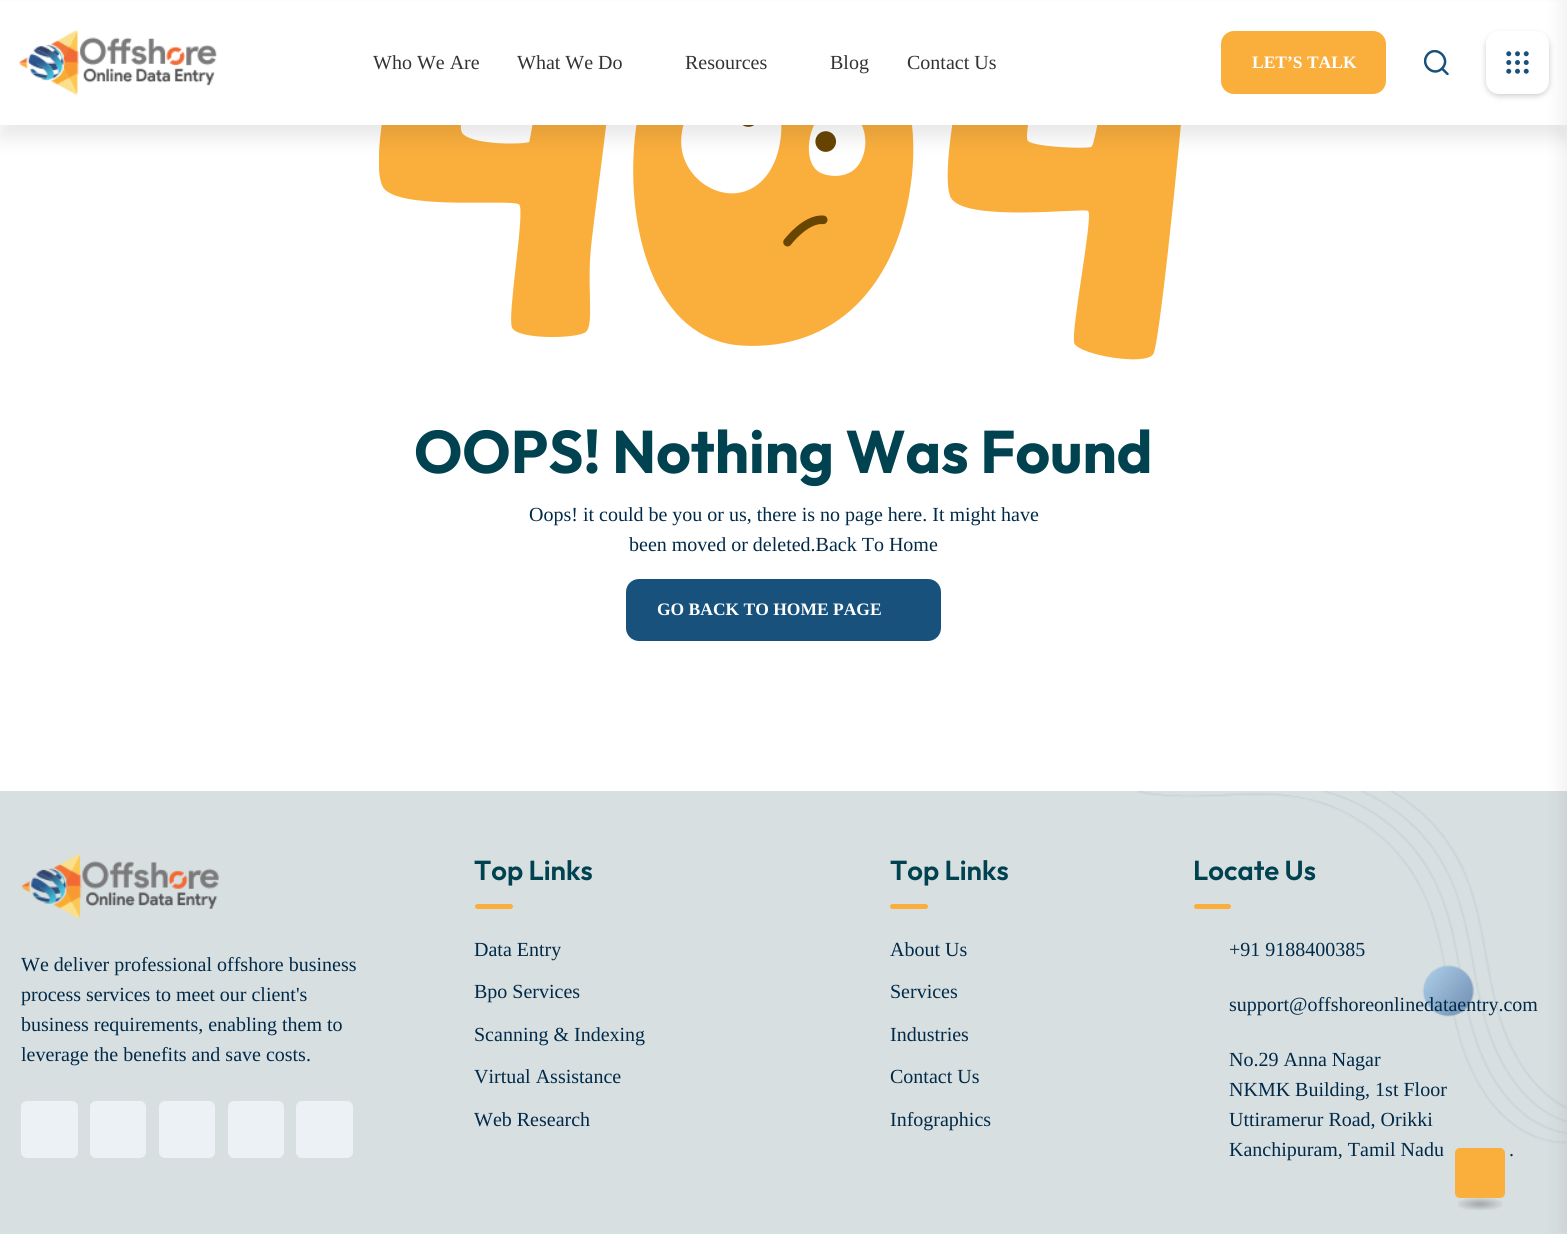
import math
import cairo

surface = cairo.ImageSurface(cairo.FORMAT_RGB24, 1567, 1234)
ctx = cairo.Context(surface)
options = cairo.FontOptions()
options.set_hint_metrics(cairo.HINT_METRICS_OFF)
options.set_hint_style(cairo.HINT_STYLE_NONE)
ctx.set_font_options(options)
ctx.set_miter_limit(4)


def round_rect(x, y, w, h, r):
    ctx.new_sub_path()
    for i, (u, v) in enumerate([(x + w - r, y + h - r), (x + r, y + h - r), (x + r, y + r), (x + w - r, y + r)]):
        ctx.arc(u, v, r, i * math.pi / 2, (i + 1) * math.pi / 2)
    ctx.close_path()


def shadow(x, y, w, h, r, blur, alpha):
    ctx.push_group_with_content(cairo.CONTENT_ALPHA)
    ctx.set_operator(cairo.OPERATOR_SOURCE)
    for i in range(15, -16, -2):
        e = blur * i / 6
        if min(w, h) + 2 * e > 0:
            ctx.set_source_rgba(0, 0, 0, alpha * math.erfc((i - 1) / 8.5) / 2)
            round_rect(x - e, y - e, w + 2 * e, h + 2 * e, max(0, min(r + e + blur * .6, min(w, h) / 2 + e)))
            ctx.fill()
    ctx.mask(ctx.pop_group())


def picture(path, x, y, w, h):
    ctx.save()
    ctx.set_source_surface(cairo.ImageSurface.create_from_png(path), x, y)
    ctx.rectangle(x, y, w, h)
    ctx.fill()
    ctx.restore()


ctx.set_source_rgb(1, 1, 1)
ctx.paint()
ctx.set_source_rgb(0.847, 0.875, 0.882)
ctx.rectangle(0, 791, 1567, 443)
ctx.fill()
picture("img3.png", 379, 125, 802, 235)
ctx.set_source_rgb(0.098, 0.098, 0.098)
shadow(0, 13, 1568, 125, 0, 9.5, 0.1)
ctx.set_source_rgb(1, 1, 1)
ctx.rectangle(0, 2, 1567, 123)
ctx.fill()
picture("img1.png", 18, 30, 199, 65)
ctx.select_font_face("Liberation Serif")
ctx.set_font_size(20)
ctx.set_source_rgb(0.2, 0.2, 0.2)
ctx.move_to(373, 69)
ctx.show_text("Who We Are")
ctx.move_to(517, 69)
ctx.show_text("What We Do")
ctx.move_to(685, 69)
ctx.show_text("Resources")
ctx.move_to(830, 69)
ctx.show_text("Blog")
ctx.move_to(907, 69)
ctx.show_text("Contact Us")
ctx.set_source_rgb(0.98, 0.682, 0.235)
round_rect(1221, 31, 165, 63, 13)
ctx.fill()
ctx.select_font_face("Liberation Serif", cairo.FONT_SLANT_NORMAL, cairo.FONT_WEIGHT_BOLD)
ctx.set_font_size(17.5)
ctx.set_source_rgb(1, 1, 1)
ctx.move_to(1252, 68)
ctx.show_text("LET’S TALK")
ctx.save()
ctx.rectangle(1424, 50, 25, 25)
ctx.clip()
ctx.new_path()
ctx.move_to(1447.5, 74)
ctx.line_to(1442, 68.5)
ctx.move_to(1442, 68.5)
ctx.curve_to(1451.5, 59, 1437, 45, 1428, 54)
ctx.curve_to(1419, 64, 1433, 77.5, 1442, 68.5)
ctx.close_path()
ctx.set_source_rgb(0.09, 0.318, 0.486)
ctx.set_line_width(2.5)
ctx.set_line_cap(cairo.LINE_CAP_ROUND)
ctx.set_line_join(cairo.LINE_JOIN_ROUND)
ctx.stroke()
ctx.restore()
ctx.set_source_rgb(0, 0, 0)
shadow(1486, 34, 63, 62, 13, 3, 0.2)
ctx.set_source_rgb(1, 1, 1)
round_rect(1486, 31, 63, 63, 13)
ctx.fill()
picture("img2.png", 1506, 51, 23, 23)
picture("img4.png", 1137, 791, 430, 353)
ctx.set_source_rgb(0, 0, 0)
shadow(1560, 0, 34, 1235, 0, 9, 0.06)
ctx.select_font_face("Outfit", cairo.FONT_SLANT_NORMAL, cairo.FONT_WEIGHT_BOLD)
ctx.set_font_size(60)
ctx.set_source_rgb(0, 0.259, 0.314)
ctx.move_to(414, 473)
ctx.show_text("OOPS! Nothing Was Found")
ctx.select_font_face("Liberation Serif")
ctx.set_font_size(20)
ctx.set_source_rgb(0, 0.165, 0.282)
ctx.move_to(529, 521)
ctx.show_text("Oops! it could be you or us, there is no page here. It might have")
ctx.move_to(629, 551)
ctx.show_text("been moved or deleted.Back To Home")
ctx.set_source_rgb(0.09, 0.318, 0.486)
round_rect(626, 579, 315, 62, 13)
ctx.fill()
ctx.select_font_face("Liberation Serif", cairo.FONT_SLANT_NORMAL, cairo.FONT_WEIGHT_BOLD)
ctx.set_font_size(17.5)
ctx.set_source_rgb(1, 1, 1)
ctx.move_to(657, 615)
ctx.show_text("GO BACK TO HOME PAGE")
picture("img5.png", 1422, 965, 52, 52)
picture("img6.png", 21, 853, 198, 66)
ctx.select_font_face("Liberation Serif")
ctx.set_font_size(20)
ctx.set_source_rgb(0, 0.165, 0.282)
ctx.move_to(21, 971)
ctx.show_text("We deliver professional offshore business")
ctx.move_to(21, 1001)
ctx.show_text("process services to meet our client's")
ctx.move_to(21, 1031)
ctx.show_text("business requirements, enabling them to")
ctx.move_to(21, 1061)
ctx.show_text("leverage the benefits and save costs.")
ctx.set_source_rgb(0.918, 0.945, 0.957)
round_rect(21, 1101, 57, 57, 6)
ctx.fill()
round_rect(90, 1101, 56, 57, 6)
ctx.fill()
round_rect(159, 1101, 56, 57, 6)
ctx.fill()
round_rect(228, 1101, 56, 57, 6)
ctx.fill()
round_rect(296, 1101, 57, 57, 6)
ctx.fill()
ctx.select_font_face("Outfit SemiBold")
ctx.set_font_size(27.5)
ctx.set_source_rgb(0, 0.259, 0.314)
ctx.move_to(474, 880)
ctx.show_text("Top Links")
ctx.set_source_rgb(0.98, 0.682, 0.235)
round_rect(475, 904, 38, 5, 2.5)
ctx.fill()
ctx.select_font_face("Liberation Serif")
ctx.set_font_size(20)
ctx.set_source_rgb(0, 0.165, 0.282)
ctx.move_to(474, 956)
ctx.show_text("Data Entry")
ctx.move_to(474, 998)
ctx.show_text("Bpo Services")
ctx.move_to(474, 1041)
ctx.show_text("Scanning & Indexing")
ctx.move_to(474, 1083)
ctx.show_text("Virtual Assistance")
ctx.move_to(474, 1126)
ctx.show_text("Web Research")
ctx.select_font_face("Outfit SemiBold")
ctx.set_font_size(27.5)
ctx.set_source_rgb(0, 0.259, 0.314)
ctx.move_to(890, 880)
ctx.show_text("Top Links")
ctx.set_source_rgb(0.98, 0.682, 0.235)
round_rect(890, 904, 38, 5, 2.5)
ctx.fill()
ctx.select_font_face("Liberation Serif")
ctx.set_font_size(20)
ctx.set_source_rgb(0, 0.165, 0.282)
ctx.move_to(890, 956)
ctx.show_text("About Us")
ctx.move_to(890, 998)
ctx.show_text("Services")
ctx.move_to(890, 1041)
ctx.show_text("Industries")
ctx.move_to(890, 1083)
ctx.show_text("Contact Us")
ctx.move_to(890, 1126)
ctx.show_text("Infographics")
ctx.select_font_face("Outfit SemiBold")
ctx.set_font_size(27.5)
ctx.set_source_rgb(0, 0.259, 0.314)
ctx.move_to(1193, 880)
ctx.show_text("Locate Us")
ctx.set_source_rgb(0.98, 0.682, 0.235)
round_rect(1194, 904, 37, 5, 2.5)
ctx.fill()
ctx.select_font_face("Liberation Serif")
ctx.set_font_size(20)
ctx.set_source_rgb(0, 0.165, 0.282)
ctx.move_to(1229, 956)
ctx.show_text("+91 9188400385")
ctx.move_to(1229, 1011)
ctx.show_text("support@offshoreonlinedataentry.com")
ctx.move_to(1229, 1066)
ctx.show_text("No.29 Anna Nagar")
ctx.move_to(1229, 1096)
ctx.show_text("NKMK Building, 1st Floor")
ctx.move_to(1229, 1126)
ctx.show_text("Uttiramerur Road, Orikki")
ctx.move_to(1229, 1156)
ctx.show_text("Kanchipuram, Tamil Nadu")
ctx.move_to(1509, 1156)
ctx.show_text(".")
ctx.set_source_rgb(0.98, 0.682, 0.235)
round_rect(1455, 1148, 50, 50, 5)
ctx.fill()
gradient = cairo.RadialGradient(0, 0, 0, 0, 0, 1)
gradient.set_matrix(cairo.Matrix(1 / 32, 0, 0, 1 / 9, -1 * 1480 / 32, -1 * 1204 / 9))
gradient.add_color_stop_rgba(0, 0.635, 0.655, 0.663, 1)
gradient.add_color_stop_rgba(0.8, 0.847, 0.875, 0.882, 1)
ctx.set_source(gradient)
ctx.rectangle(1458, 1198, 45, 12)
ctx.fill()
surface.write_to_png("page.png")
